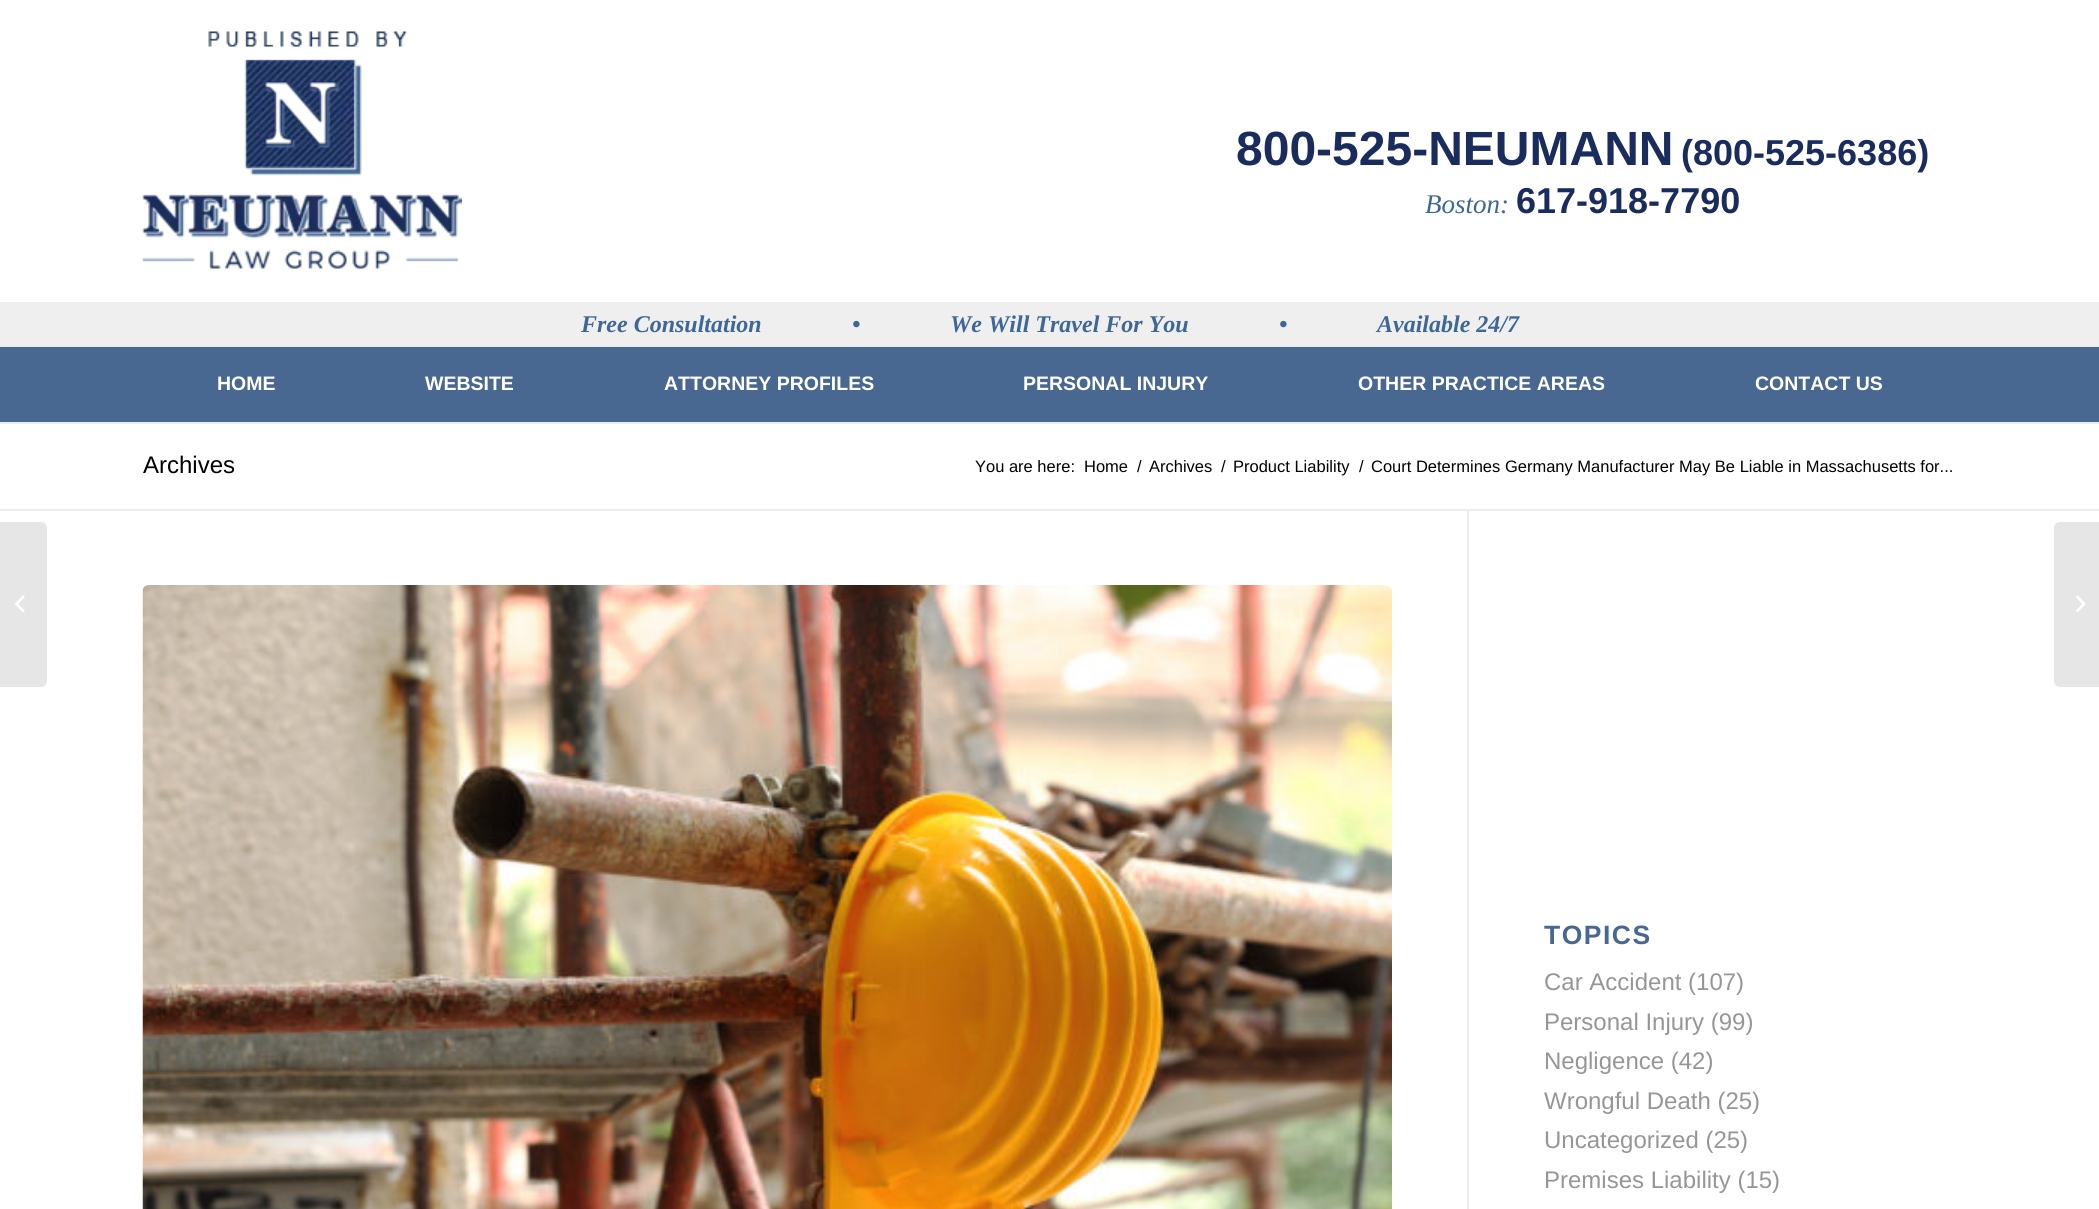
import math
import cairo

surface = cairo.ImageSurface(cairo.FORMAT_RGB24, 2099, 1209)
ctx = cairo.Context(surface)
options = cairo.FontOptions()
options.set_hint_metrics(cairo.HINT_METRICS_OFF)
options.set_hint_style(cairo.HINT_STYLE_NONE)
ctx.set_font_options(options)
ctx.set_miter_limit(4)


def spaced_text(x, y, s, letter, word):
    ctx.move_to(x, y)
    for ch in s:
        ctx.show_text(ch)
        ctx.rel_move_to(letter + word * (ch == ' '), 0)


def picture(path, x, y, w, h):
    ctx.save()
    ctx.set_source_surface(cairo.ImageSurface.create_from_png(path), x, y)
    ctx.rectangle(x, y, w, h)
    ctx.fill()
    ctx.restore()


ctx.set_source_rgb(1, 1, 1)
ctx.paint()
ctx.set_source_rgb(0.922, 0.922, 0.922)
ctx.rectangle(0, 422, 2099, 2)
ctx.fill()
picture("img1.png", 142, 31, 320, 238)
ctx.select_font_face("Liberation Sans", cairo.FONT_SLANT_NORMAL, cairo.FONT_WEIGHT_BOLD)
ctx.set_font_size(48)
ctx.set_source_rgb(0.102, 0.173, 0.369)
ctx.move_to(1236, 165)
ctx.show_text("800-525-NEUMANN")
ctx.set_font_size(36)
ctx.move_to(1681, 165)
ctx.show_text("(800-525-6386)")
ctx.select_font_face("Liberation Serif", cairo.FONT_SLANT_ITALIC)
ctx.set_font_size(27)
ctx.set_source_rgb(0.247, 0.404, 0.584)
ctx.move_to(1425, 213)
ctx.show_text("Boston:")
ctx.select_font_face("Liberation Sans", cairo.FONT_SLANT_NORMAL, cairo.FONT_WEIGHT_BOLD)
ctx.set_font_size(36)
ctx.set_source_rgb(0.102, 0.173, 0.369)
ctx.move_to(1516, 213)
ctx.show_text("617-918-7790")
ctx.set_source_rgb(0.937, 0.937, 0.937)
ctx.rectangle(0, 302, 2099, 43)
ctx.fill()
ctx.select_font_face("Liberation Serif", cairo.FONT_SLANT_ITALIC, cairo.FONT_WEIGHT_BOLD)
ctx.set_font_size(24)
ctx.set_source_rgb(0.247, 0.404, 0.584)
ctx.move_to(581, 332)
ctx.show_text("Free Consultation")
ctx.move_to(852, 332)
ctx.show_text("•")
ctx.move_to(950, 332)
ctx.show_text("We Will Travel For You")
ctx.move_to(1279, 332)
ctx.show_text("•")
ctx.move_to(1377, 332)
ctx.show_text("Available 24/7")
ctx.set_source_rgb(0.282, 0.404, 0.569)
ctx.rectangle(0, 347, 2099, 75)
ctx.fill()
ctx.set_source_rgb(0.922, 0.922, 0.922)
ctx.rectangle(0, 345, 2099, 2)
ctx.fill()
ctx.select_font_face("Liberation Sans", cairo.FONT_SLANT_NORMAL, cairo.FONT_WEIGHT_BOLD)
ctx.set_font_size(19.5)
ctx.set_source_rgb(1, 1, 1)
ctx.move_to(217, 390)
ctx.show_text("HOME")
ctx.move_to(425, 390)
ctx.show_text("WEBSITE")
ctx.move_to(664, 390)
ctx.show_text("ATTORNEY PROFILES")
ctx.move_to(1023, 390)
ctx.show_text("PERSONAL INJURY")
ctx.move_to(1358, 390)
ctx.show_text("OTHER PRACTICE AREAS")
ctx.move_to(1755, 390)
ctx.show_text("CONTACT US")
ctx.set_source_rgb(0.902, 0.902, 0.902)
ctx.new_path()
ctx.move_to(0, 522)
ctx.line_to(41, 522)
ctx.curve_to(44.5, 522, 47, 524.5, 47, 528)
ctx.line_to(47, 681)
ctx.curve_to(47, 684.5, 44.5, 687, 41, 687)
ctx.line_to(0, 687)
ctx.close_path()
ctx.fill()
picture("img2.png", 15, 595, 10, 17)
ctx.select_font_face("Liberation Sans")
ctx.set_font_size(24)
ctx.set_source_rgb(0, 0, 0)
ctx.move_to(143, 473)
ctx.show_text("Archives")
ctx.set_font_size(16.5)
ctx.move_to(975, 472)
ctx.show_text("You are here:")
ctx.move_to(1084, 472)
ctx.show_text("Home")
ctx.move_to(1137, 472)
ctx.show_text("/")
ctx.move_to(1149, 472)
ctx.show_text("Archives")
ctx.move_to(1221, 472)
ctx.show_text("/")
ctx.move_to(1233, 472)
ctx.show_text("Product Liability")
ctx.move_to(1359, 472)
ctx.show_text("/")
ctx.move_to(1371, 472)
ctx.show_text("Court Determines Germany Manufacturer May Be Liable in Massachusetts for...")
ctx.set_source_rgb(0.922, 0.922, 0.922)
ctx.rectangle(0, 509, 2099, 2)
ctx.fill()
ctx.rectangle(1467, 510, 2, 699)
ctx.fill()
picture("img3.png", 142, 585, 1250, 624)
ctx.select_font_face("Liberation Sans", cairo.FONT_SLANT_NORMAL, cairo.FONT_WEIGHT_BOLD)
ctx.set_font_size(26.5)
ctx.set_source_rgb(0.282, 0.404, 0.569)
spaced_text(1544, 944, "TOPICS", 1.5, 0)
ctx.select_font_face("Liberation Sans")
ctx.set_font_size(24)
ctx.set_source_rgb(0.588, 0.588, 0.588)
ctx.move_to(1544, 990)
ctx.show_text("Car Accident (107)")
ctx.move_to(1544, 1030)
ctx.show_text("Personal Injury (99)")
ctx.move_to(1544, 1069)
ctx.show_text("Negligence (42)")
ctx.move_to(1544, 1109)
ctx.show_text("Wrongful Death (25)")
ctx.move_to(1544, 1148)
ctx.show_text("Uncategorized (25)")
ctx.move_to(1544, 1188)
ctx.show_text("Premises Liability (15)")
ctx.set_source_rgb(0.902, 0.902, 0.902)
ctx.new_path()
ctx.move_to(2060, 522)
ctx.line_to(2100, 522)
ctx.line_to(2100, 687)
ctx.line_to(2060, 687)
ctx.curve_to(2056.5, 687, 2054, 684.5, 2054, 681)
ctx.line_to(2054, 528)
ctx.curve_to(2054, 524.5, 2056.5, 522, 2060, 522)
ctx.close_path()
ctx.fill()
picture("img4.png", 2076, 595, 10, 17)
surface.write_to_png("page.png")
